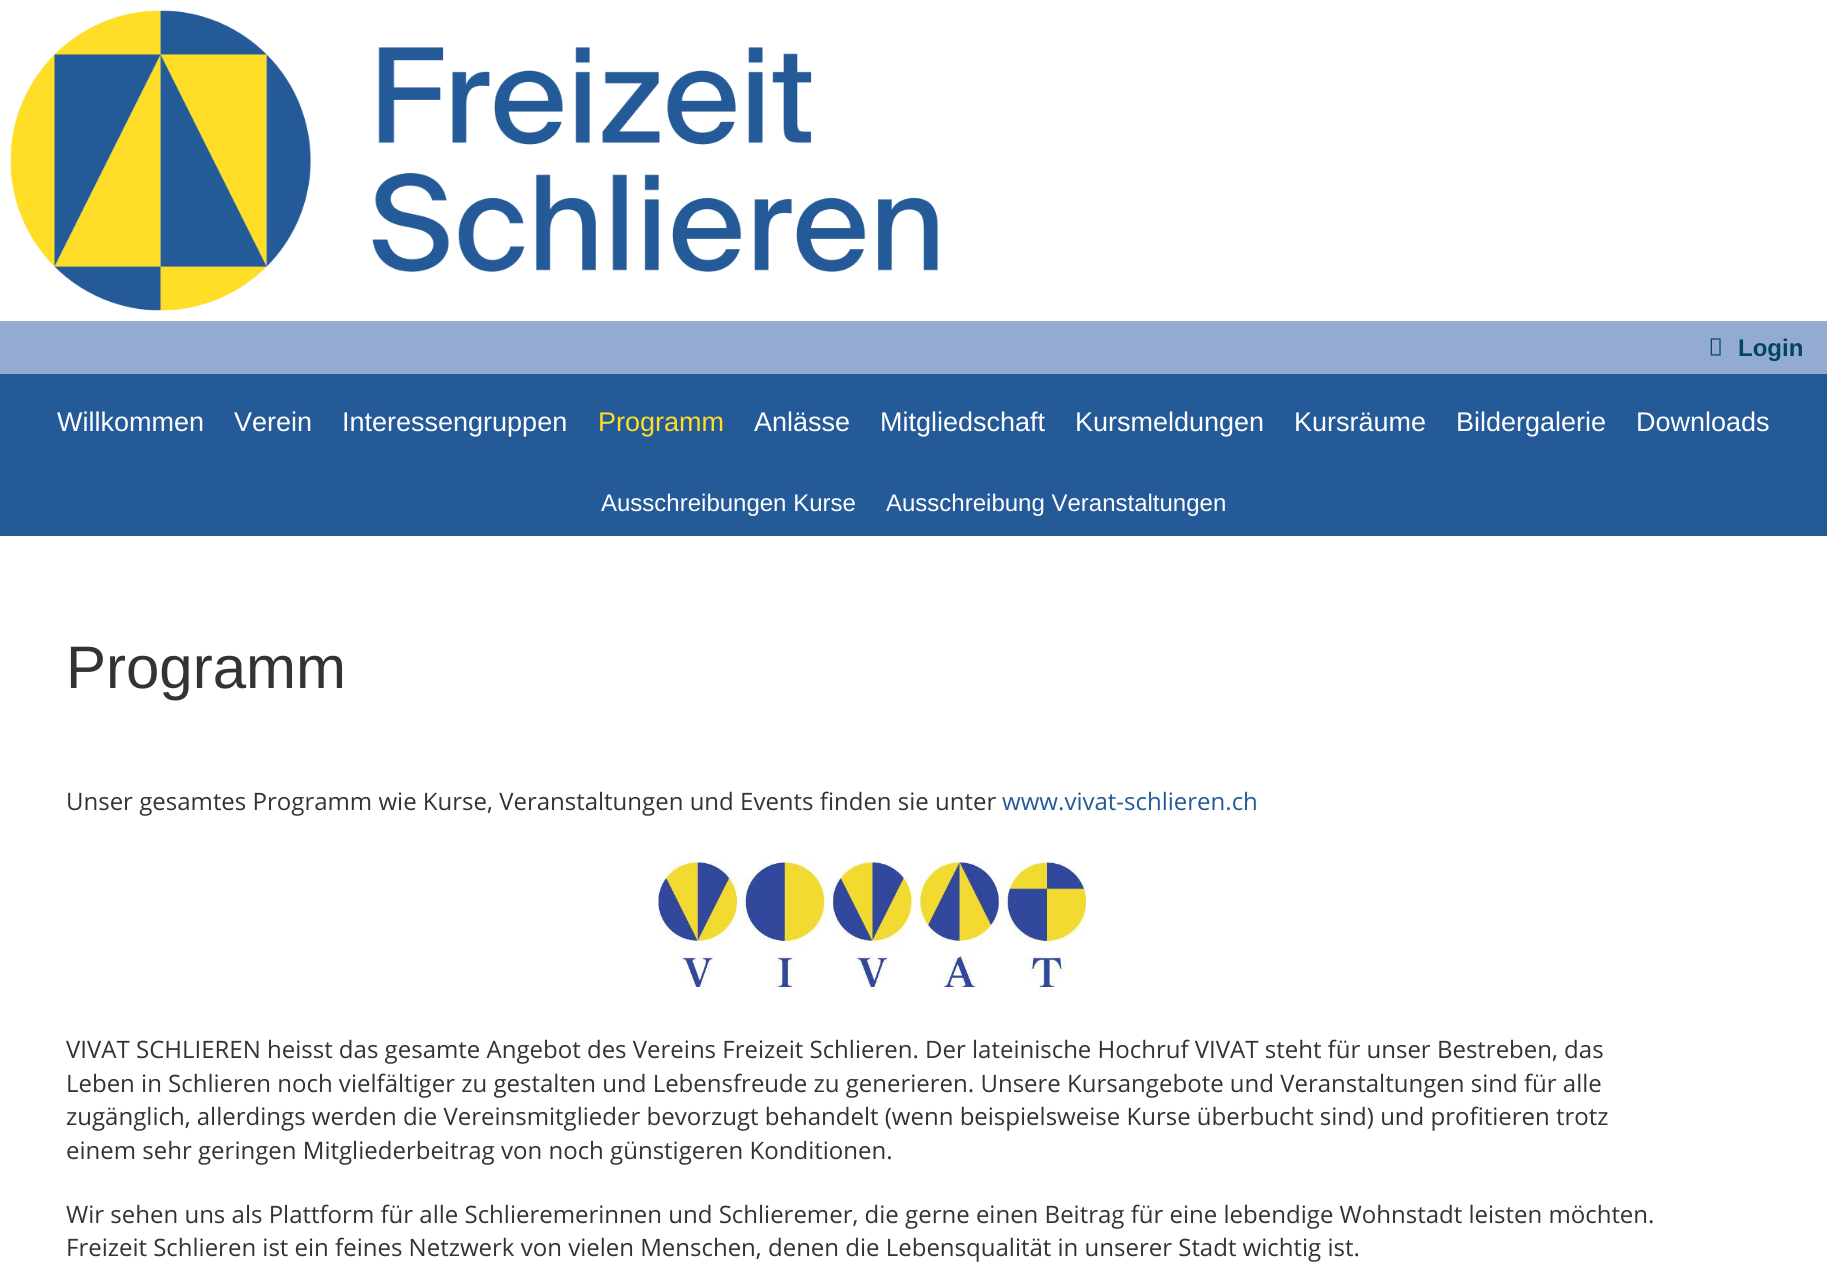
import math
import cairo

surface = cairo.ImageSurface(cairo.FORMAT_RGB24, 1827, 1273)
ctx = cairo.Context(surface)
options = cairo.FontOptions()
options.set_hint_metrics(cairo.HINT_METRICS_OFF)
options.set_hint_style(cairo.HINT_STYLE_NONE)
ctx.set_font_options(options)
ctx.set_miter_limit(4)


def picture(path, x, y, w, h):
    ctx.save()
    ctx.set_source_surface(cairo.ImageSurface.create_from_png(path), x, y)
    ctx.rectangle(x, y, w, h)
    ctx.fill()
    ctx.restore()


ctx.set_source_rgb(1, 1, 1)
ctx.paint()
picture("img1.png", 10, 10, 928, 301)
ctx.set_source_rgb(0.576, 0.671, 0.82)
ctx.rectangle(0, 321, 1827, 53)
ctx.fill()
picture("img2.png", 1710, 338, 11, 18)
ctx.select_font_face("Liberation Sans", cairo.FONT_SLANT_NORMAL, cairo.FONT_WEIGHT_BOLD)
ctx.set_font_size(24)
ctx.set_source_rgb(0.012, 0.271, 0.38)
ctx.move_to(1738, 356)
ctx.show_text("Login")
ctx.set_source_rgb(0.145, 0.353, 0.596)
ctx.rectangle(0, 374, 1827, 162)
ctx.fill()
ctx.select_font_face("Liberation Sans")
ctx.set_font_size(27)
ctx.set_source_rgb(1, 1, 1)
ctx.move_to(57, 431)
ctx.show_text("Willkommen")
ctx.move_to(234, 431)
ctx.show_text("Verein")
ctx.move_to(342, 431)
ctx.show_text("Interessengruppen")
ctx.set_source_rgb(1, 0.871, 0.157)
ctx.move_to(598, 431)
ctx.show_text("Programm")
ctx.set_source_rgb(1, 1, 1)
ctx.move_to(754, 431)
ctx.show_text("Anlässe")
ctx.move_to(880, 431)
ctx.show_text("Mitgliedschaft")
ctx.move_to(1075, 431)
ctx.show_text("Kursmeldungen")
ctx.move_to(1294, 431)
ctx.show_text("Kursräume")
ctx.move_to(1456, 431)
ctx.show_text("Bildergalerie")
ctx.move_to(1636, 431)
ctx.show_text("Downloads")
ctx.set_font_size(24)
ctx.move_to(601, 511)
ctx.show_text("Ausschreibungen Kurse")
ctx.move_to(886, 511)
ctx.show_text("Ausschreibung Veranstaltungen")
ctx.set_font_size(60)
ctx.set_source_rgb(0.2, 0.2, 0.2)
ctx.move_to(66, 688)
ctx.show_text("Programm")
ctx.select_font_face("Open Sans")
ctx.set_font_size(24)
ctx.move_to(66, 810)
ctx.show_text("Unser gesamtes Programm wie Kurse, Veranstaltungen und Events finden sie unter")
ctx.set_source_rgb(0.145, 0.353, 0.596)
ctx.move_to(1002, 810)
ctx.show_text("www.vivat-schlieren.ch")
picture("img3.png", 658, 862, 428, 125)
ctx.set_source_rgb(0.2, 0.2, 0.2)
ctx.move_to(66, 1058)
ctx.show_text("VIVAT SCHLIEREN heisst das gesamte Angebot des Vereins Freizeit Schlieren. Der lateinische Hochruf VIVAT steht für unser Bestreben, das")
ctx.move_to(66, 1092)
ctx.show_text("Leben in Schlieren noch vielfältiger zu gestalten und Lebensfreude zu generieren. Unsere Kursangebote und Veranstaltungen sind für alle")
ctx.move_to(66, 1125)
ctx.show_text("zugänglich, allerdings werden die Vereinsmitglieder bevorzugt behandelt (wenn beispielsweise Kurse überbucht sind) und profitieren trotz")
ctx.move_to(66, 1159)
ctx.show_text("einem sehr geringen Mitgliederbeitrag von noch günstigeren Konditionen.")
ctx.move_to(66, 1223)
ctx.show_text("Wir sehen uns als Plattform für alle Schlieremerinnen und Schlieremer, die gerne einen Beitrag für eine lebendige Wohnstadt leisten möchten.")
ctx.move_to(66, 1256)
ctx.show_text("Freizeit Schlieren ist ein feines Netzwerk von vielen Menschen, denen die Lebensqualität in unserer Stadt wichtig ist.")
surface.write_to_png("page.png")
